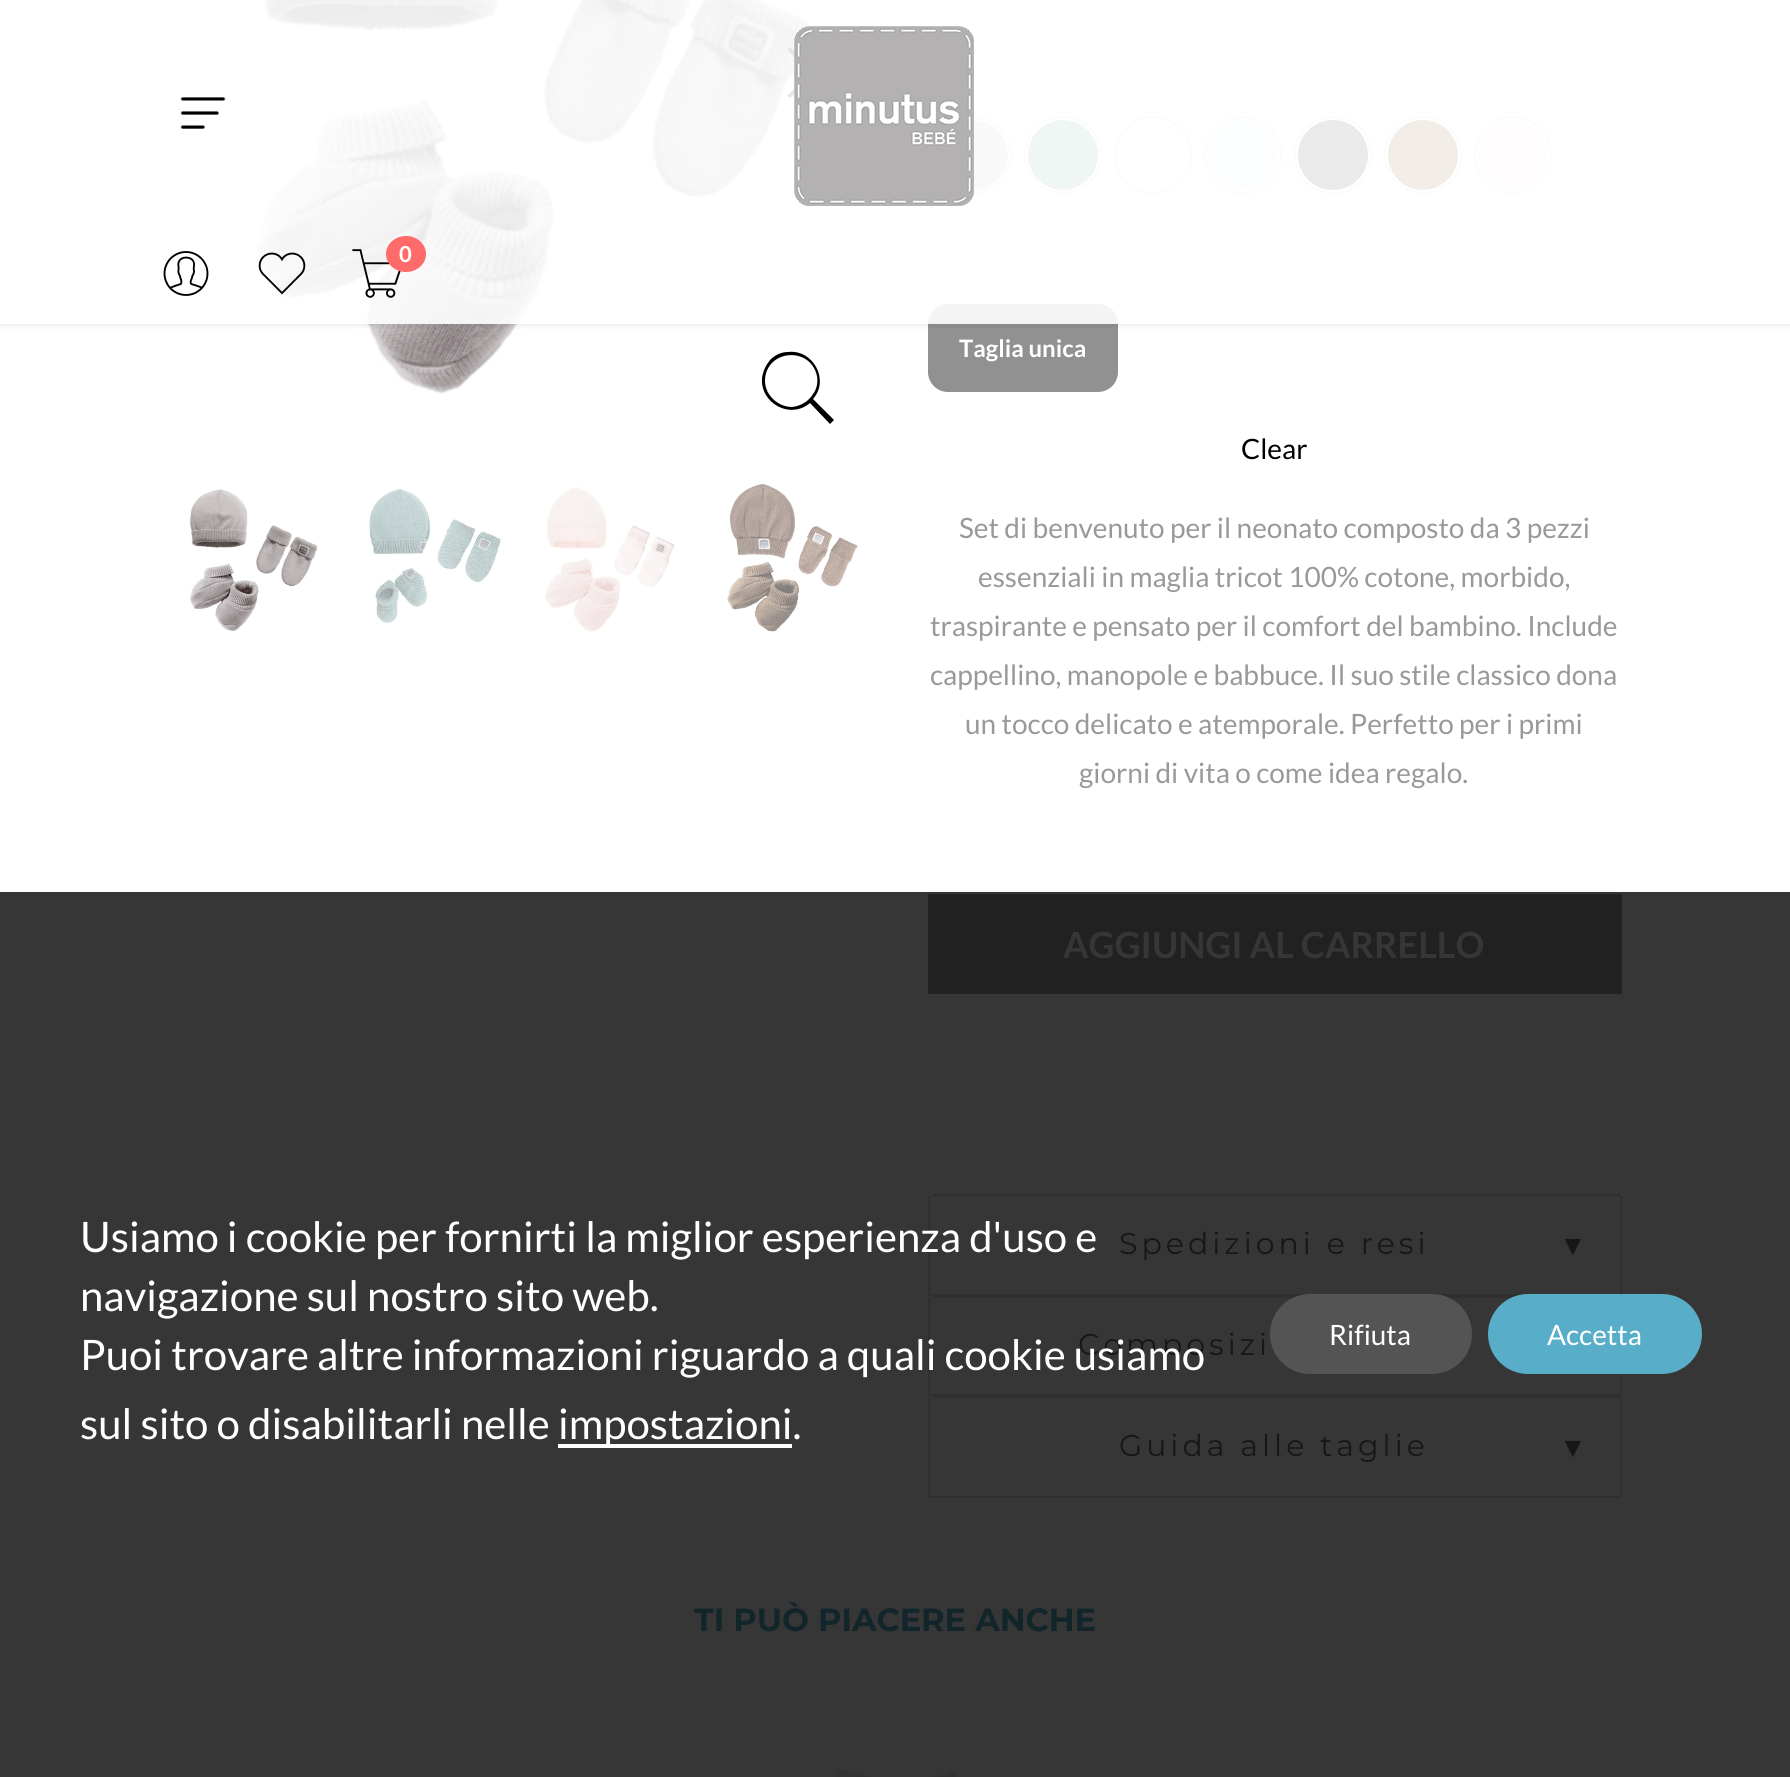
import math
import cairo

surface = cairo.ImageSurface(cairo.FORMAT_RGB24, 1790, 1777)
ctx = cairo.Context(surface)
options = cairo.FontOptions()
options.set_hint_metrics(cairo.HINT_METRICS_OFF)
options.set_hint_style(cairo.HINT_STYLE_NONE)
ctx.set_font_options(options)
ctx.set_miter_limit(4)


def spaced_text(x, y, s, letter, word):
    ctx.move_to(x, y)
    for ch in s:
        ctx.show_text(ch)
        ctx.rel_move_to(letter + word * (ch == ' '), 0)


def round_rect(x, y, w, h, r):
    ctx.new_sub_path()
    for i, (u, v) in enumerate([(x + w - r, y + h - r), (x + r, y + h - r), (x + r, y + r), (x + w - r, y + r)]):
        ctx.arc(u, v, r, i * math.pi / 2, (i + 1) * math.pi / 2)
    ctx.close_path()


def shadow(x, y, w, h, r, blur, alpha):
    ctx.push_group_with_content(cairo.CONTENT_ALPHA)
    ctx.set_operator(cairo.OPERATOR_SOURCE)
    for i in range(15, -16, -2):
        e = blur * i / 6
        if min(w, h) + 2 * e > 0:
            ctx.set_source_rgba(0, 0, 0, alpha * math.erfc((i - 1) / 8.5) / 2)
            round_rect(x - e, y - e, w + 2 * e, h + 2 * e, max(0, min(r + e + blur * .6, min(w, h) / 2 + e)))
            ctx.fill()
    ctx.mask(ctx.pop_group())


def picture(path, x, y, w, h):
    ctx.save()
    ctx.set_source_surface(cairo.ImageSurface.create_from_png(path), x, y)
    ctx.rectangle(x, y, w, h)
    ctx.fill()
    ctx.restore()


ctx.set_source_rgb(1, 1, 1)
ctx.paint()
ctx.set_source_rgb(0.212, 0.212, 0.212)
ctx.rectangle(0, 892, 1790, 885)
ctx.fill()
picture("img6.png", 255, 0, 555, 394)
ctx.set_source_rgb(0, 0, 0)
ctx.new_path()
ctx.move_to(790, 47)
ctx.line_to(816, 73)
ctx.line_to(790, 98)
ctx.line_to(787, 96)
ctx.line_to(810, 73)
ctx.line_to(787, 50)
ctx.close_path()
ctx.fill()
ctx.arc(973, 155, 38, 0, 2 * math.pi)
ctx.set_source_rgb(0.867, 0.867, 0.867)
ctx.stroke()
picture("img11.png", 973, 120, 35, 70)
ctx.arc(1063, 155, 38, 0, 2 * math.pi)
ctx.stroke()
picture("img12.png", 1028, 120, 70, 70)
ctx.arc(1153, 155, 38, 0, 2 * math.pi)
ctx.stroke()
ctx.arc(1243, 155, 38, 0, 2 * math.pi)
ctx.stroke()
picture("img13.png", 1208, 120, 70, 70)
ctx.arc(1333, 155, 38, 0, 2 * math.pi)
ctx.stroke()
ctx.set_source_rgb(0.157, 0.153, 0.22)
ctx.arc(1333, 155, 35, 0, 2 * math.pi)
ctx.fill()
ctx.arc(1423, 155, 38, 0, 2 * math.pi)
ctx.set_source_rgb(0.867, 0.867, 0.867)
ctx.stroke()
ctx.set_source_rgb(0.486, 0.286, 0.051)
ctx.arc(1423, 155, 35, 0, 2 * math.pi)
ctx.fill()
ctx.arc(1513, 155, 38, 0, 2 * math.pi)
ctx.set_source_rgb(0.867, 0.867, 0.867)
ctx.stroke()
picture("img14.png", 1478, 120, 70, 70)
ctx.set_source_rgb(0.569, 0.569, 0.569)
round_rect(930, 306, 186, 84, 18)
ctx.fill_preserve()
ctx.set_line_width(4)
ctx.stroke()
ctx.save()
ctx.rectangle(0, 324, 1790, 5)
ctx.clip()
ctx.set_source_rgb(0, 0, 0)
shadow(0, 0, 1790, 324, 0, 5, 0.12)
ctx.restore()
ctx.set_source_rgba(1, 1, 1, 0.9)
ctx.rectangle(255, 0, 1297, 324)
ctx.fill()
picture("img1.png", 180, 97, 46, 32)
picture("img2.png", 794, 26, 180, 180)
picture("img3.png", 163, 251, 46, 45)
picture("img4.png", 258, 252, 48, 43)
picture("img5.png", 352, 249, 49, 49)
ctx.set_source_rgb(1, 0.42, 0.42)
ctx.new_path()
ctx.move_to(406, 236)
ctx.curve_to(417, 236, 426, 244, 426, 254)
ctx.curve_to(426, 264, 417, 272, 406, 272)
ctx.curve_to(395, 272, 386, 264, 386, 254)
ctx.curve_to(386, 244, 395, 236, 406, 236)
ctx.close_path()
ctx.fill()
ctx.select_font_face("Lato", cairo.FONT_SLANT_NORMAL, cairo.FONT_WEIGHT_BOLD)
ctx.set_font_size(22)
ctx.set_source_rgb(1, 1, 1)
ctx.move_to(399, 262)
ctx.show_text("0")
ctx.set_source_rgb(0, 0, 0)
ctx.new_path()
ctx.move_to(834, 420)
ctx.line_to(813, 399)
ctx.curve_to(830, 380, 813, 349, 788, 352)
ctx.curve_to(781, 352, 775, 355, 770, 360)
ctx.curve_to(766, 365, 763, 371, 762, 378)
ctx.curve_to(760, 403, 790, 420, 810, 403)
ctx.line_to(830, 424)
ctx.close_path()
ctx.move_to(765, 381)
ctx.curve_to(765, 350, 810, 345, 817, 376)
ctx.curve_to(818, 382, 817, 389, 813, 394)
ctx.curve_to(809, 401, 801, 406, 792, 407)
ctx.curve_to(778, 407, 765, 395, 765, 381)
ctx.close_path()
ctx.fill()
picture("img7.png", 189, 489, 129, 143)
picture("img8.png", 369, 488, 132, 135)
picture("img9.png", 545, 487, 129, 145)
picture("img10.png", 727, 483, 131, 149)
ctx.set_font_size(24)
ctx.set_source_rgb(1, 1, 1)
ctx.move_to(959, 357)
ctx.show_text("Taglia unica")
ctx.select_font_face("Lato")
ctx.set_font_size(28)
ctx.set_source_rgb(0, 0, 0)
ctx.move_to(1241, 459)
ctx.show_text("Clear")
ctx.set_source_rgb(0.6, 0.6, 0.6)
ctx.move_to(959, 538)
ctx.show_text("Set di benvenuto per il neonato composto da 3 pezzi")
ctx.move_to(978, 587)
ctx.show_text("essenziali in maglia tricot 100% cotone, morbido,")
ctx.move_to(930, 636)
ctx.show_text("traspirante e pensato per il comfort del bambino. Include")
ctx.move_to(930, 685)
ctx.show_text("cappellino, manopole e babbuce. Il suo stile classico dona")
ctx.move_to(965, 734)
ctx.show_text("un tocco delicato e atemporale. Perfetto per i primi")
ctx.move_to(1079, 783)
ctx.show_text("giorni di vita o come idea regalo.")
ctx.set_source_rgb(0.129, 0.129, 0.129)
ctx.rectangle(928, 894, 694, 100)
ctx.fill()
ctx.select_font_face("Lato", cairo.FONT_SLANT_NORMAL, cairo.FONT_WEIGHT_BOLD)
ctx.set_font_size(36)
ctx.set_source_rgb(0.212, 0.212, 0.212)
ctx.move_to(1063, 958)
ctx.show_text("AGGIUNGI AL CARRELLO")
ctx.set_source_rgb(0.184, 0.184, 0.184)
ctx.rectangle(932, 1194, 688, 2)
ctx.fill()
ctx.rectangle(928, 1294, 600, 2)
ctx.fill()
ctx.rectangle(1620, 1196, 2, 98)
ctx.fill()
ctx.rectangle(928, 1196, 2, 98)
ctx.fill()
ctx.select_font_face("Montserrat")
ctx.set_font_size(30)
ctx.set_source_rgb(0.09, 0.09, 0.09)
spaced_text(1119, 1254, "Spedizioni e resi", 4, 0)
ctx.select_font_face("Liberation Sans")
ctx.set_font_size(28)
ctx.move_to(1559, 1255)
ctx.show_text("▼")
ctx.set_source_rgb(0.184, 0.184, 0.184)
ctx.rectangle(932, 1296, 584, 2)
ctx.fill()
ctx.rectangle(928, 1394, 694, 2)
ctx.fill()
ctx.rectangle(1620, 1374, 2, 20)
ctx.fill()
ctx.rectangle(928, 1298, 2, 96)
ctx.fill()
ctx.select_font_face("Montserrat")
ctx.set_font_size(30)
ctx.set_source_rgb(0.09, 0.09, 0.09)
spaced_text(1078, 1355, "Composizi", 4, 0)
ctx.set_source_rgb(0.184, 0.184, 0.184)
ctx.rectangle(932, 1396, 688, 2)
ctx.fill()
ctx.rectangle(928, 1496, 694, 2)
ctx.fill()
ctx.rectangle(1620, 1398, 2, 98)
ctx.fill()
ctx.rectangle(928, 1398, 2, 98)
ctx.fill()
ctx.set_source_rgb(0.09, 0.09, 0.09)
spaced_text(1119, 1456, "Guida alle taglie", 4, 0)
ctx.select_font_face("Liberation Sans")
ctx.set_font_size(28)
ctx.move_to(1559, 1457)
ctx.show_text("▼")
ctx.select_font_face("Montserrat", cairo.FONT_SLANT_NORMAL, cairo.FONT_WEIGHT_BOLD)
ctx.set_font_size(32)
ctx.set_source_rgb(0.071, 0.145, 0.165)
ctx.move_to(694, 1631)
ctx.show_text("TI PUÒ PIACERE ANCHE")
picture("img15.png", 835, 1769, 121, 8)
ctx.select_font_face("Lato")
ctx.set_font_size(42)
ctx.set_source_rgb(1, 1, 1)
ctx.move_to(80, 1252)
ctx.show_text("Usiamo i cookie per fornirti la miglior esperienza d'uso e")
ctx.move_to(80, 1311)
ctx.show_text("navigazione sul nostro sito web.")
ctx.move_to(80, 1370)
ctx.show_text("Puoi trovare altre informazioni riguardo a quali cookie usiamo")
ctx.move_to(80, 1439)
ctx.show_text("sul sito o disabilitarli nelle")
ctx.rectangle(558, 1444, 234, 4)
ctx.fill()
ctx.move_to(558, 1439)
ctx.show_text("impostazioni.")
ctx.set_source_rgb(0.329, 0.329, 0.329)
round_rect(1270, 1294, 202, 80, 40)
ctx.fill()
ctx.set_font_size(28)
ctx.set_source_rgb(1, 1, 1)
ctx.move_to(1329, 1345)
ctx.show_text("Rifiuta")
ctx.set_source_rgb(0.345, 0.682, 0.784)
round_rect(1488, 1294, 214, 80, 40)
ctx.fill()
ctx.set_source_rgb(1, 1, 1)
ctx.move_to(1547, 1345)
ctx.show_text("Accetta")
surface.write_to_png("page.png")
